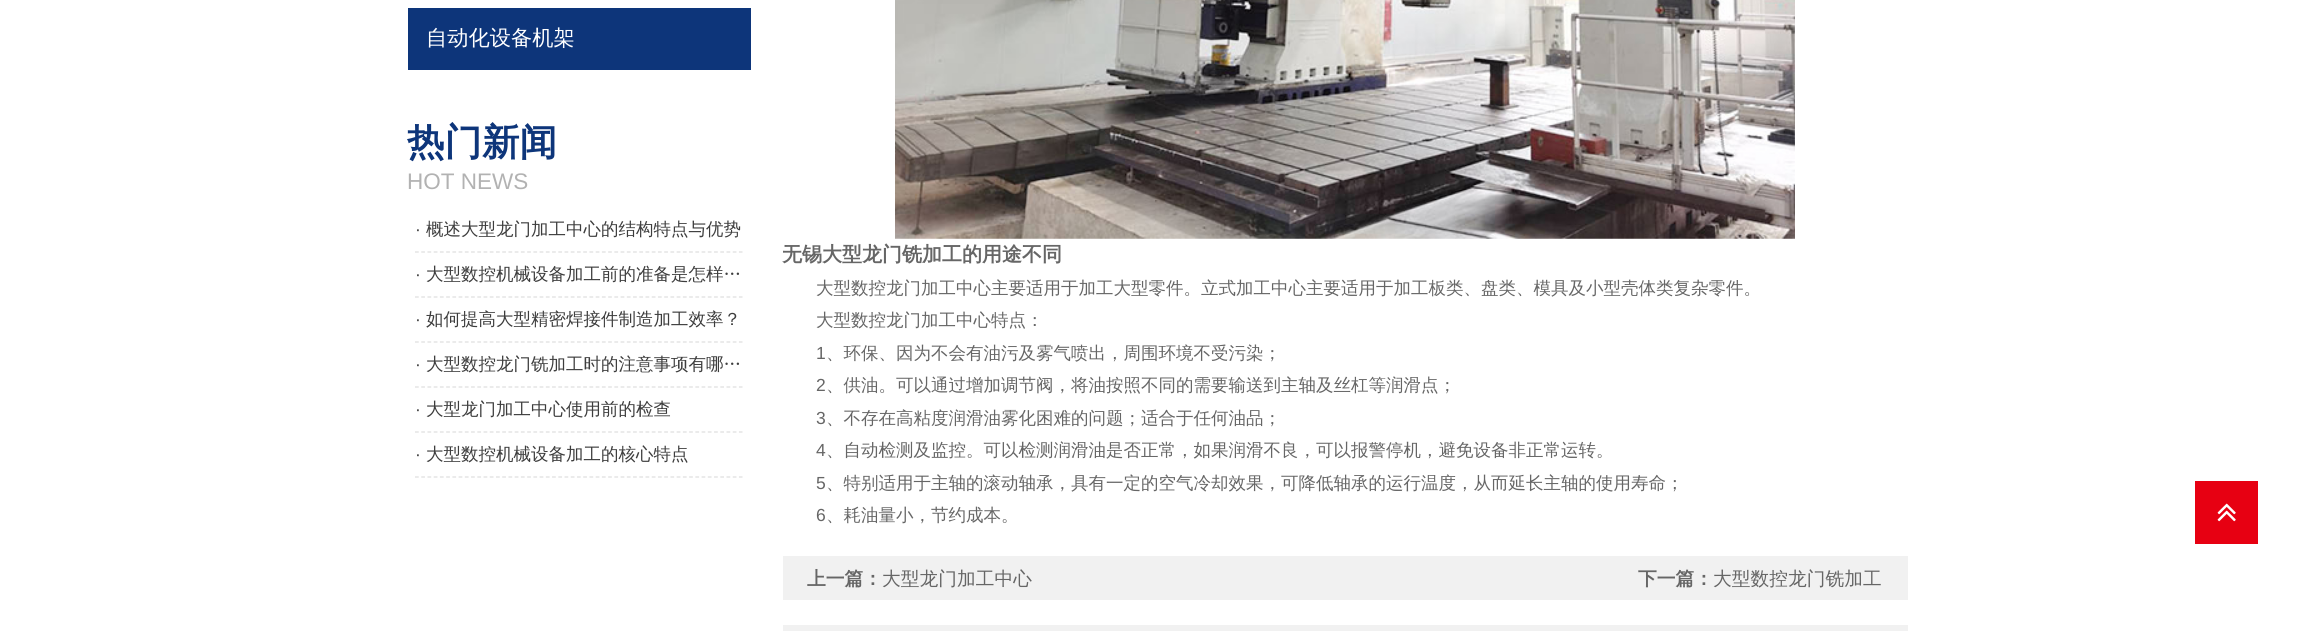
import math
import cairo

surface = cairo.ImageSurface(cairo.FORMAT_RGB24, 2313, 631)
ctx = cairo.Context(surface)
options = cairo.FontOptions()
options.set_hint_metrics(cairo.HINT_METRICS_OFF)
options.set_hint_style(cairo.HINT_STYLE_NONE)
ctx.set_font_options(options)
ctx.set_miter_limit(4)


def picture(path, x, y, w, h):
    ctx.save()
    ctx.set_source_surface(cairo.ImageSurface.create_from_png(path), x, y)
    ctx.rectangle(x, y, w, h)
    ctx.fill()
    ctx.restore()


ctx.set_source_rgb(1, 1, 1)
ctx.paint()
ctx.set_source_rgb(0.051, 0.208, 0.478)
ctx.rectangle(408, 8, 343, 62)
ctx.fill()
ctx.select_font_face("WenQuanYi Zen Hei Medium")
ctx.set_font_size(21.25)
ctx.set_source_rgb(1, 1, 1)
ctx.move_to(426, 45)
ctx.show_text("自动化设备机架")
ctx.select_font_face("WenQuanYi Zen Hei", cairo.FONT_SLANT_NORMAL, cairo.FONT_WEIGHT_BOLD)
ctx.set_font_size(37.5)
ctx.set_source_rgb(0.051, 0.208, 0.478)
ctx.move_to(407, 155)
ctx.show_text("热门新闻")
ctx.select_font_face("Liberation Sans")
ctx.set_font_size(22.5)
ctx.set_source_rgb(0.698, 0.698, 0.698)
ctx.move_to(407, 189)
ctx.show_text("HOT NEWS")
ctx.new_path()
ctx.move_to(415, 252)
ctx.line_to(742.5, 252)
ctx.set_source_rgb(0.871, 0.871, 0.871)
ctx.set_line_width(1.2)
ctx.set_dash([3.75, 2.48])
ctx.stroke()
ctx.set_font_size(17.5)
ctx.set_source_rgb(0.239, 0.239, 0.239)
ctx.move_to(415, 235)
ctx.show_text("·")
ctx.select_font_face("WenQuanYi Zen Hei Medium")
ctx.move_to(426, 235)
ctx.show_text("概述大型龙门加工中心的结构特点与优势")
ctx.new_path()
ctx.move_to(415, 297)
ctx.line_to(742.5, 297)
ctx.set_source_rgb(0.871, 0.871, 0.871)
ctx.stroke()
ctx.select_font_face("Liberation Sans")
ctx.set_source_rgb(0.239, 0.239, 0.239)
ctx.move_to(415, 280)
ctx.show_text("·")
ctx.select_font_face("WenQuanYi Zen Hei Medium")
ctx.move_to(426, 280)
ctx.show_text("大型数控机械设备加工前的准备是怎样…")
ctx.new_path()
ctx.move_to(415, 342)
ctx.line_to(742.5, 342)
ctx.set_source_rgb(0.871, 0.871, 0.871)
ctx.stroke()
ctx.select_font_face("Liberation Sans")
ctx.set_source_rgb(0.239, 0.239, 0.239)
ctx.move_to(415, 325)
ctx.show_text("·")
ctx.select_font_face("WenQuanYi Zen Hei Medium")
ctx.move_to(426, 325)
ctx.show_text("如何提高大型精密焊接件制造加工效率？")
ctx.new_path()
ctx.move_to(415, 387)
ctx.line_to(742.5, 387)
ctx.set_source_rgb(0.871, 0.871, 0.871)
ctx.stroke()
ctx.select_font_face("Liberation Sans")
ctx.set_source_rgb(0.239, 0.239, 0.239)
ctx.move_to(415, 370)
ctx.show_text("·")
ctx.select_font_face("WenQuanYi Zen Hei Medium")
ctx.move_to(426, 370)
ctx.show_text("大型数控龙门铣加工时的注意事项有哪…")
ctx.new_path()
ctx.move_to(415, 432)
ctx.line_to(742.5, 432)
ctx.set_source_rgb(0.871, 0.871, 0.871)
ctx.stroke()
ctx.select_font_face("Liberation Sans")
ctx.set_source_rgb(0.239, 0.239, 0.239)
ctx.move_to(415, 415)
ctx.show_text("·")
ctx.select_font_face("WenQuanYi Zen Hei Medium")
ctx.move_to(426, 415)
ctx.show_text("大型龙门加工中心使用前的检查")
ctx.new_path()
ctx.move_to(415, 477)
ctx.line_to(742.5, 477)
ctx.set_source_rgb(0.871, 0.871, 0.871)
ctx.stroke()
ctx.select_font_face("Liberation Sans")
ctx.set_source_rgb(0.239, 0.239, 0.239)
ctx.move_to(415, 460)
ctx.show_text("·")
ctx.select_font_face("WenQuanYi Zen Hei Medium")
ctx.move_to(426, 460)
ctx.show_text("大型数控机械设备加工的核心特点")
picture("img1.png", 895, 0, 900, 239)
ctx.select_font_face("WenQuanYi Zen Hei", cairo.FONT_SLANT_NORMAL, cairo.FONT_WEIGHT_BOLD)
ctx.set_font_size(20)
ctx.set_source_rgb(0.4, 0.4, 0.4)
ctx.move_to(782, 261)
ctx.show_text("无锡大型龙门铣加工的用途不同")
ctx.select_font_face("WenQuanYi Zen Hei Medium")
ctx.set_font_size(17.5)
ctx.move_to(816, 294)
ctx.show_text("大型数控龙门加工中心主要适用于加工大型零件。立式加工中心主要适用于加工板类、盘类、模具及小型壳体类复杂零件。")
ctx.move_to(816, 326)
ctx.show_text("大型数控龙门加工中心特点：")
ctx.select_font_face("Liberation Sans")
ctx.move_to(816, 359)
ctx.show_text("1")
ctx.select_font_face("WenQuanYi Zen Hei Medium")
ctx.move_to(826, 359)
ctx.show_text("、环保、因为不会有油污及雾气喷出，周围环境不受污染；")
ctx.select_font_face("Liberation Sans")
ctx.move_to(816, 391)
ctx.show_text("2")
ctx.select_font_face("WenQuanYi Zen Hei Medium")
ctx.move_to(826, 391)
ctx.show_text("、供油。可以通过增加调节阀，将油按照不同的需要输送到主轴及丝杠等润滑点；")
ctx.select_font_face("Liberation Sans")
ctx.move_to(816, 424)
ctx.show_text("3")
ctx.select_font_face("WenQuanYi Zen Hei Medium")
ctx.move_to(826, 424)
ctx.show_text("、不存在高粘度润滑油雾化困难的问题；适合于任何油品；")
ctx.select_font_face("Liberation Sans")
ctx.move_to(816, 456)
ctx.show_text("4")
ctx.select_font_face("WenQuanYi Zen Hei Medium")
ctx.move_to(826, 456)
ctx.show_text("、自动检测及监控。可以检测润滑油是否正常，如果润滑不良，可以报警停机，避免设备非正常运转。")
ctx.select_font_face("Liberation Sans")
ctx.move_to(816, 489)
ctx.show_text("5")
ctx.select_font_face("WenQuanYi Zen Hei Medium")
ctx.move_to(826, 489)
ctx.show_text("、特别适用于主轴的滚动轴承，具有一定的空气冷却效果，可降低轴承的运行温度，从而延长主轴的使用寿命；")
ctx.select_font_face("Liberation Sans")
ctx.move_to(816, 521)
ctx.show_text("6")
ctx.select_font_face("WenQuanYi Zen Hei Medium")
ctx.move_to(826, 521)
ctx.show_text("、耗油量小，节约成本。")
ctx.set_source_rgb(0.945, 0.945, 0.945)
ctx.rectangle(783, 556, 1125, 44)
ctx.fill()
ctx.select_font_face("WenQuanYi Zen Hei", cairo.FONT_SLANT_NORMAL, cairo.FONT_WEIGHT_BOLD)
ctx.set_font_size(18.75)
ctx.set_source_rgb(0.4, 0.4, 0.4)
ctx.move_to(807, 585)
ctx.show_text("上一篇：")
ctx.select_font_face("WenQuanYi Zen Hei Medium")
ctx.move_to(882, 585)
ctx.show_text("大型龙门加工中心")
ctx.select_font_face("WenQuanYi Zen Hei", cairo.FONT_SLANT_NORMAL, cairo.FONT_WEIGHT_BOLD)
ctx.move_to(1638, 585)
ctx.show_text("下一篇：")
ctx.select_font_face("WenQuanYi Zen Hei Medium")
ctx.move_to(1713, 585)
ctx.show_text("大型数控龙门铣加工")
ctx.set_source_rgb(0.945, 0.945, 0.945)
ctx.rectangle(783, 625, 1125, 6)
ctx.fill()
ctx.set_source_rgb(0.906, 0, 0.071)
ctx.rectangle(2195, 481, 63, 63)
ctx.fill()
picture("img2.png", 2217, 503, 19, 19)
surface.write_to_png("page.png")
